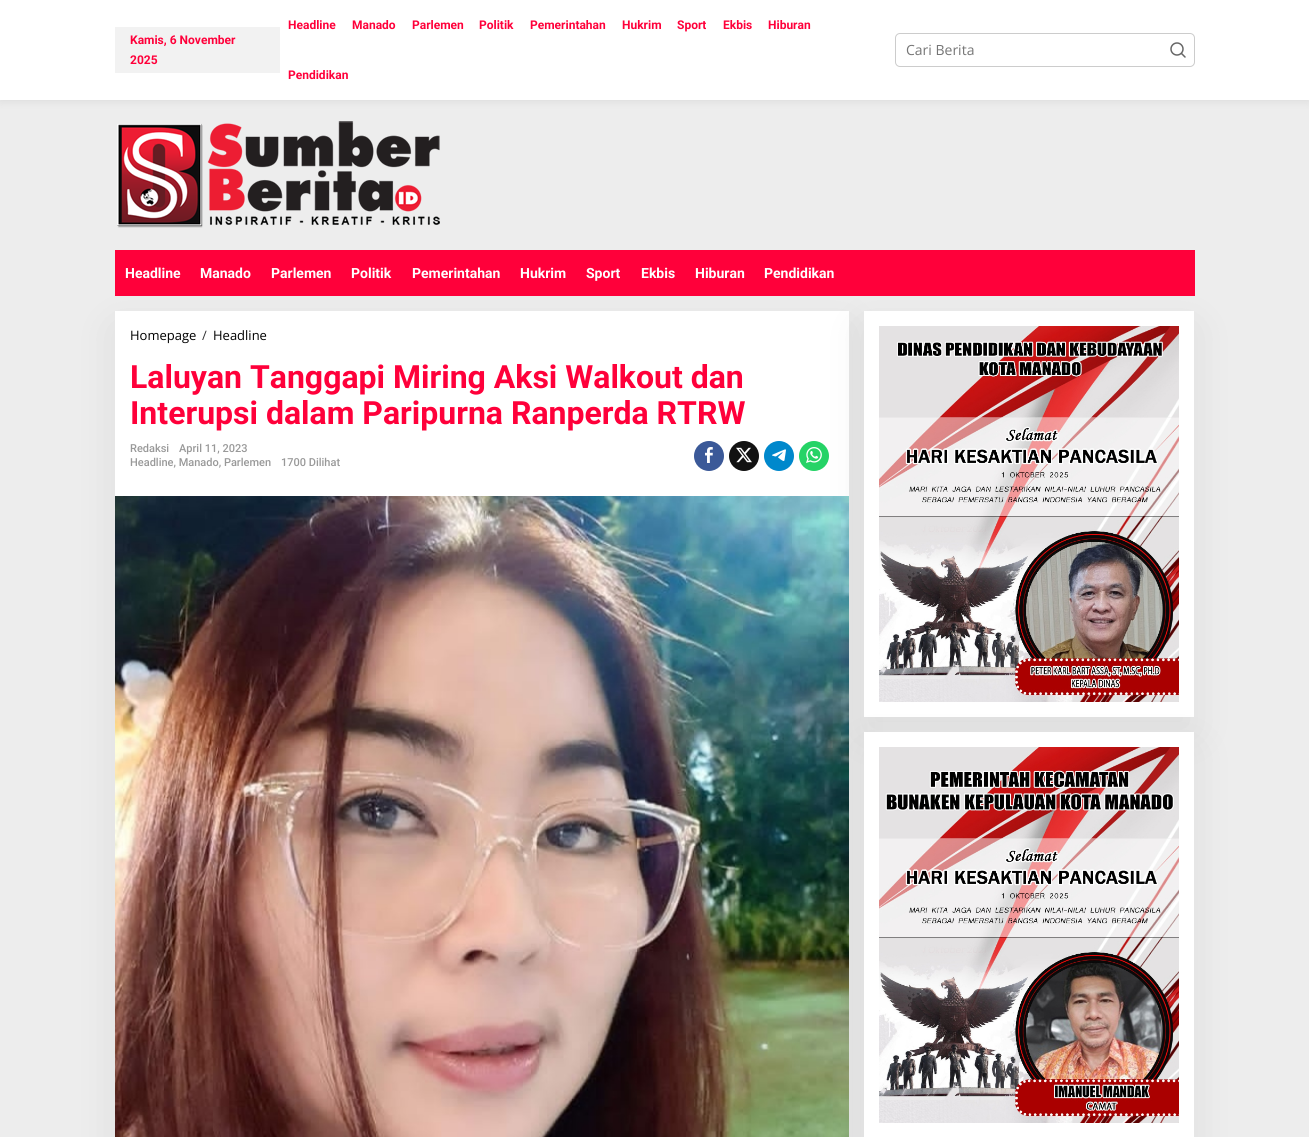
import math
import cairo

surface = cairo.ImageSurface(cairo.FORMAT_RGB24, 1309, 1137)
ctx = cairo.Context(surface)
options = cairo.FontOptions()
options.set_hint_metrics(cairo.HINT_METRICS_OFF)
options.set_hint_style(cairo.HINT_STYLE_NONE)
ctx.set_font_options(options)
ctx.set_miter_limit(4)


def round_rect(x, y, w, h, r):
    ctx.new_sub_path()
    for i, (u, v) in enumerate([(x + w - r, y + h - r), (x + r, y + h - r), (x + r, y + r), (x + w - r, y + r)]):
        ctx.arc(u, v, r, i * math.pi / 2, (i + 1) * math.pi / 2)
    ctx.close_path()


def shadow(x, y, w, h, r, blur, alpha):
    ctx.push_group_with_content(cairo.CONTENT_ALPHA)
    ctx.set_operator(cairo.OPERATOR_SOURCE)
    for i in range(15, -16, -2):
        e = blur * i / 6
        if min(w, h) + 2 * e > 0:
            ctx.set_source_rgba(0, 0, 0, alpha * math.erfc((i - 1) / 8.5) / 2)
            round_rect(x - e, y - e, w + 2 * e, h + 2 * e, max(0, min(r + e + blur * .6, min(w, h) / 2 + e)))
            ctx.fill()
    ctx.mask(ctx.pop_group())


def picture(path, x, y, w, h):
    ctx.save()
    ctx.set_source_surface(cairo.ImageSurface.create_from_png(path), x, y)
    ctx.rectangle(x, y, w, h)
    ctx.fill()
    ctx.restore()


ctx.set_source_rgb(0.929, 0.929, 0.929)
ctx.paint()
ctx.set_source_rgb(0, 0, 0)
shadow(0, 0, 1309, 100, 0, 5, 0.1)
ctx.set_source_rgb(1, 1, 1)
ctx.rectangle(0, 0, 1309, 100)
ctx.fill()
ctx.set_source_rgb(0.949, 0.949, 0.949)
ctx.rectangle(115, 27, 165, 46)
ctx.fill()
ctx.select_font_face("Roboto", cairo.FONT_SLANT_NORMAL, cairo.FONT_WEIGHT_BOLD)
ctx.set_font_size(12)
ctx.set_source_rgb(1, 0, 0.227)
ctx.move_to(130, 44)
ctx.show_text("Kamis, 6 November")
ctx.move_to(130, 64)
ctx.show_text("2025")
ctx.move_to(288, 29)
ctx.show_text("Headline")
ctx.move_to(352, 29)
ctx.show_text("Manado")
ctx.move_to(412, 29)
ctx.show_text("Parlemen")
ctx.move_to(479, 29)
ctx.show_text("Politik")
ctx.move_to(530, 29)
ctx.show_text("Pemerintahan")
ctx.move_to(622, 29)
ctx.show_text("Hukrim")
ctx.move_to(677, 29)
ctx.show_text("Sport")
ctx.move_to(723, 29)
ctx.show_text("Ekbis")
ctx.move_to(768, 29)
ctx.show_text("Hiburan")
ctx.move_to(288, 79)
ctx.show_text("Pendidikan")
round_rect(895.5, 33.5, 299, 33, 4.5)
ctx.set_source_rgb(0.8, 0.8, 0.8)
ctx.set_line_width(1)
ctx.stroke()
ctx.select_font_face("Open Sans")
ctx.set_font_size(14)
ctx.set_source_rgb(0.459, 0.459, 0.459)
ctx.move_to(906, 55)
ctx.show_text("Cari Berita")
ctx.new_path()
ctx.arc(1177, 49, 6, 0, 2 * math.pi)
ctx.set_source_rgb(0.4, 0.4, 0.4)
ctx.set_line_width(1.5)
ctx.stroke()
ctx.new_path()
ctx.move_to(1185, 57)
ctx.line_to(1181.5, 53.5)
ctx.set_line_cap(cairo.LINE_CAP_ROUND)
ctx.set_line_join(cairo.LINE_JOIN_ROUND)
ctx.stroke()
picture("img1.png", 117, 121, 323, 107)
ctx.set_source_rgb(1, 0, 0.227)
ctx.rectangle(115, 250, 1080, 46)
ctx.fill()
ctx.select_font_face("Roboto", cairo.FONT_SLANT_NORMAL, cairo.FONT_WEIGHT_BOLD)
ctx.set_source_rgb(1, 1, 1)
ctx.move_to(125, 278)
ctx.show_text("Headline")
ctx.move_to(200, 278)
ctx.show_text("Manado")
ctx.move_to(271, 278)
ctx.show_text("Parlemen")
ctx.move_to(351, 278)
ctx.show_text("Politik")
ctx.move_to(412, 278)
ctx.show_text("Pemerintahan")
ctx.move_to(520, 278)
ctx.show_text("Hukrim")
ctx.move_to(586, 278)
ctx.show_text("Sport")
ctx.move_to(641, 278)
ctx.show_text("Ekbis")
ctx.move_to(695, 278)
ctx.show_text("Hiburan")
ctx.move_to(764, 278)
ctx.show_text("Pendidikan")
ctx.set_source_rgb(0, 0, 0)
shadow(115, 327, 734, 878, 0, 22.5, 0.07)
ctx.set_source_rgb(1, 1, 1)
ctx.rectangle(115, 311, 734, 185)
ctx.fill()
ctx.select_font_face("Open Sans")
ctx.set_font_size(13)
ctx.set_source_rgb(0, 0, 0)
ctx.move_to(130, 340)
ctx.show_text("Homepage")
ctx.set_source_rgb(0.196, 0.196, 0.2)
ctx.move_to(202, 340)
ctx.show_text("/")
ctx.set_source_rgb(0, 0, 0)
ctx.move_to(213, 340)
ctx.show_text("Headline")
ctx.select_font_face("Roboto", cairo.FONT_SLANT_NORMAL, cairo.FONT_WEIGHT_BOLD)
ctx.set_font_size(32)
ctx.set_source_rgb(1, 0, 0.227)
ctx.move_to(130, 388)
ctx.show_text("Laluyan Tanggapi Miring Aksi Walkout dan")
ctx.move_to(130, 424)
ctx.show_text("Interupsi dalam Paripurna Ranperda RTRW")
ctx.select_font_face("Roboto Medium")
ctx.set_font_size(11)
ctx.set_source_rgb(0.6, 0.6, 0.6)
ctx.move_to(130, 452)
ctx.show_text("Redaksi")
ctx.move_to(179, 452)
ctx.show_text("April 11, 2023")
ctx.move_to(130, 466)
ctx.show_text("Headline, Manado, Parlemen")
ctx.move_to(281, 466)
ctx.show_text("1700 Dilihat")
ctx.set_source_rgb(0.231, 0.349, 0.596)
ctx.new_path()
ctx.arc(709, 456, 15, 0, 2 * math.pi)
ctx.fill()
picture("img2.png", 705, 447, 8, 16)
ctx.set_source_rgb(0.071, 0.071, 0.071)
ctx.arc(744, 456, 15, 0, 2 * math.pi)
ctx.fill()
picture("img3.png", 736, 447, 16, 16)
ctx.set_source_rgb(0, 0.533, 0.8)
ctx.arc(779, 456, 15, 0, 2 * math.pi)
ctx.fill()
picture("img4.png", 772, 449, 14, 12)
ctx.set_source_rgb(0.145, 0.827, 0.4)
ctx.arc(814, 456, 15, 0, 2 * math.pi)
ctx.fill()
picture("img5.png", 806, 447, 16, 16)
picture("img6.png", 115, 496, 734, 641)
ctx.set_source_rgb(0, 0, 0)
shadow(864, 327, 330, 406, 0, 22.5, 0.07)
ctx.set_source_rgb(1, 1, 1)
ctx.rectangle(864, 311, 330, 406)
ctx.fill()
ctx.set_source_rgb(0, 0, 0)
shadow(864, 748, 330, 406, 0, 22.5, 0.07)
picture("img7.png", 879, 326, 300, 376)
ctx.set_source_rgb(1, 1, 1)
ctx.rectangle(864, 732, 330, 405)
ctx.fill()
picture("img8.png", 879, 747, 300, 376)
surface.write_to_png("page.png")
